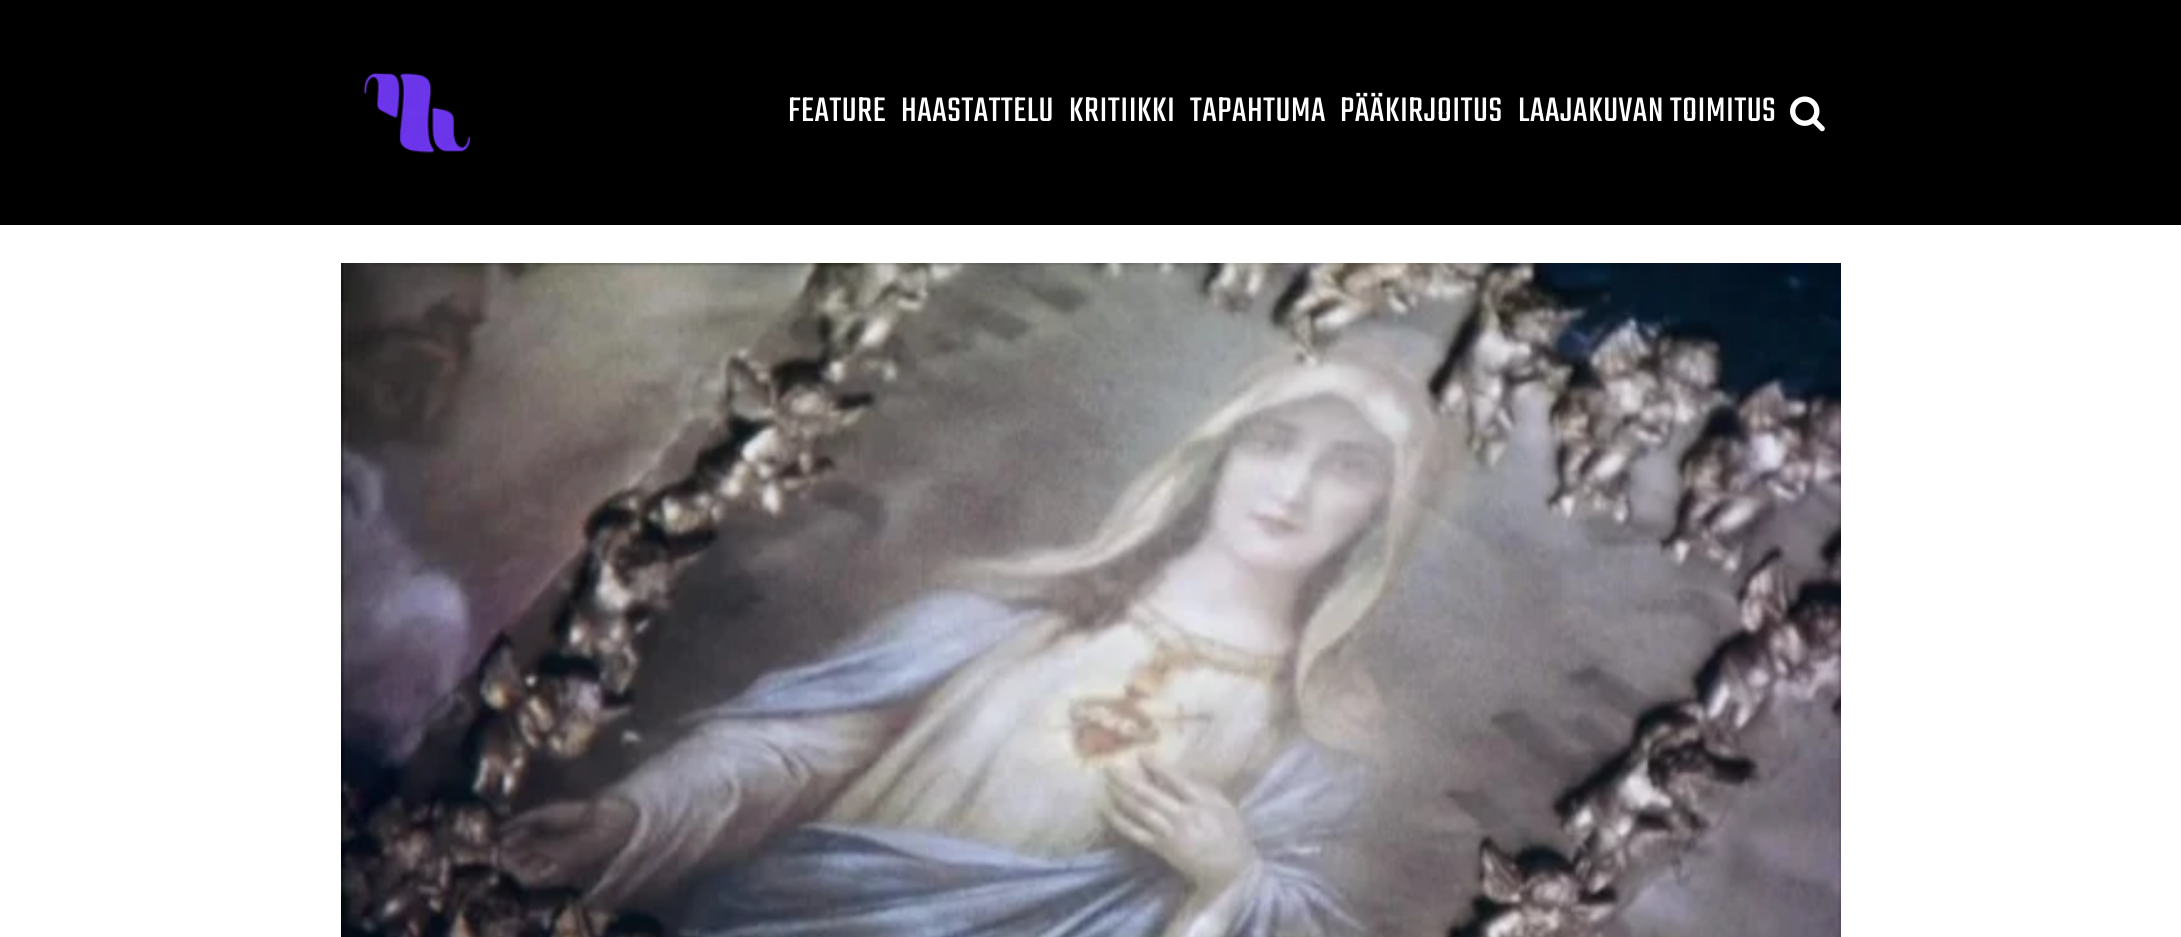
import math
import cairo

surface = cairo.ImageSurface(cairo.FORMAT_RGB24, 2181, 937)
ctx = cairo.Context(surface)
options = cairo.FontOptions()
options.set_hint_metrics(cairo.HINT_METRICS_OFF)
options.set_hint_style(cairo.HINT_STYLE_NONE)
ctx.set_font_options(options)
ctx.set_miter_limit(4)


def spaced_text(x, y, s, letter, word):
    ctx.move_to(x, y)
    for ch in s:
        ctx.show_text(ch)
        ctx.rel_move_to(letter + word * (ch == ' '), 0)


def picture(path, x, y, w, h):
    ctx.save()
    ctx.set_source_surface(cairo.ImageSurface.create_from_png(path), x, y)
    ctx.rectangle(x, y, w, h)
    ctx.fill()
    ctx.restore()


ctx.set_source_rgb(1, 1, 1)
ctx.paint()
ctx.set_source_rgb(0, 0, 0)
ctx.rectangle(0, 0, 2181, 225)
ctx.fill()
picture("img1.png", 363, 72, 108, 81)
ctx.select_font_face("Teko Light")
ctx.set_font_size(37.5)
ctx.set_source_rgb(1, 1, 1)
spaced_text(788, 121, "FEATURE", 0.6, 0)
spaced_text(901, 121, "HAASTATTELU", 0.6, 0)
spaced_text(1069, 121, "KRITIIKKI", 0.6, 0)
spaced_text(1190, 121, "TAPAHTUMA", 0.6, 0)
spaced_text(1340, 121, "PÄÄKIRJOITUS", 0.6, 0)
spaced_text(1518, 121, "LAAJAKUVAN TOIMITUS", 0.6, 0)
picture("img2.png", 1790, 96, 35, 36)
picture("img3.png", 341, 263, 1500, 674)
surface.write_to_png("page.png")
